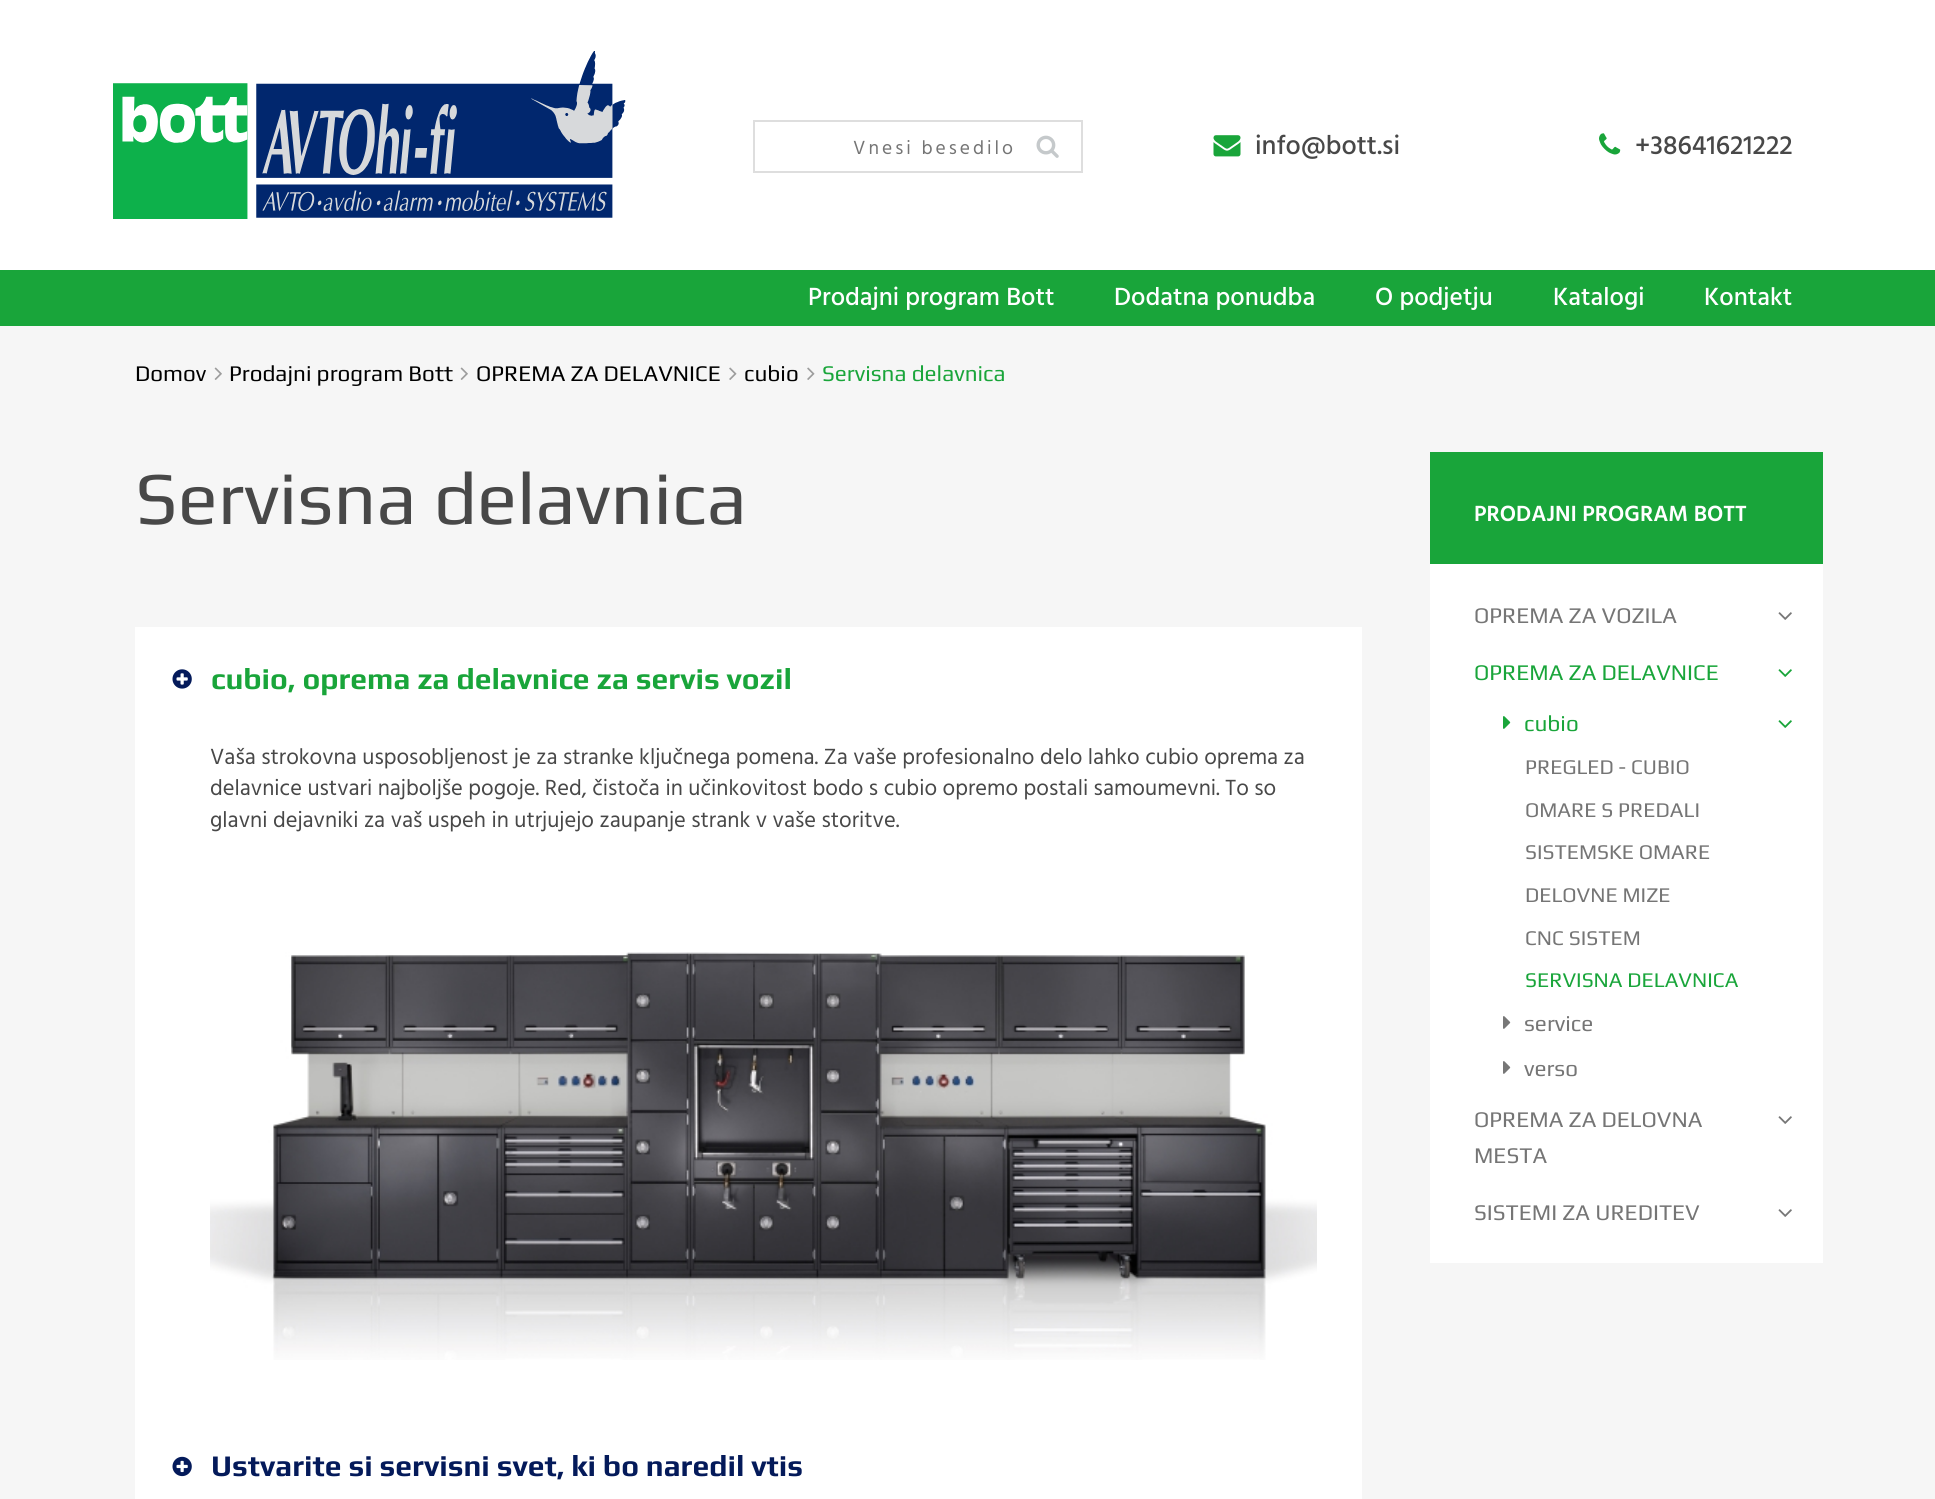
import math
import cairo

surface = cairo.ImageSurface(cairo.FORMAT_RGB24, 1935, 1499)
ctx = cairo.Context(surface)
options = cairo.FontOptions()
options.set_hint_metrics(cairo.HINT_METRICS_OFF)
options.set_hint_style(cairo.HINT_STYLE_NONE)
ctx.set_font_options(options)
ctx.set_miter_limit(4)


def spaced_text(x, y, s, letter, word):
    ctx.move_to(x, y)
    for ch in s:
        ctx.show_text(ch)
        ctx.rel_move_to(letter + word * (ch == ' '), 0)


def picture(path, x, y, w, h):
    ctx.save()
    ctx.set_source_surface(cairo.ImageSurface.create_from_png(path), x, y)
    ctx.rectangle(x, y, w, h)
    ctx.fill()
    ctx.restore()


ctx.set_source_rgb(0.961, 0.961, 0.961)
ctx.paint()
ctx.set_source_rgb(1, 1, 1)
ctx.rectangle(0, 0, 1935, 270)
ctx.fill()
picture("img1.png", 113, 51, 513, 168)
ctx.rectangle(754, 121, 328, 51)
ctx.set_source_rgb(0.871, 0.871, 0.871)
ctx.stroke()
ctx.select_font_face("Hind")
ctx.set_font_size(19.5)
ctx.set_source_rgb(0.459, 0.459, 0.459)
spaced_text(853, 154, "Vnesi besedilo", 3, 0)
picture("img2.png", 1036, 135, 23, 23)
picture("img3.png", 1213, 135, 28, 22)
ctx.select_font_face("Hind Medium")
ctx.set_font_size(27)
ctx.set_source_rgb(0.282, 0.282, 0.282)
ctx.move_to(1255, 154)
ctx.show_text("info@bott.si")
picture("img4.png", 1599, 133, 22, 22)
ctx.move_to(1635, 154)
ctx.show_text("+38641621222")
ctx.set_source_rgb(0.098, 0.647, 0.227)
ctx.rectangle(0, 270, 1935, 56)
ctx.fill()
ctx.set_font_size(25.5)
ctx.set_source_rgb(1, 1, 1)
ctx.move_to(808, 305)
ctx.show_text("Prodajni program Bott")
ctx.move_to(1114, 305)
ctx.show_text("Dodatna ponudba")
ctx.move_to(1375, 305)
ctx.show_text("O podjetju")
ctx.move_to(1553, 305)
ctx.show_text("Katalogi")
ctx.move_to(1704, 305)
ctx.show_text("Kontakt")
ctx.select_font_face("Play")
ctx.set_font_size(22.5)
ctx.set_source_rgb(0, 0, 0)
ctx.move_to(135, 381)
ctx.show_text("Domov")
picture("img5.png", 214, 367, 8, 13)
ctx.move_to(229, 381)
ctx.show_text("Prodajni program Bott")
picture("img5.png", 460, 367, 8, 13)
ctx.move_to(476, 381)
ctx.show_text("OPREMA ZA DELAVNICE")
picture("img6.png", 729, 367, 8, 13)
ctx.move_to(744, 381)
ctx.show_text("cubio")
picture("img6.png", 807, 367, 8, 13)
ctx.set_source_rgb(0.098, 0.647, 0.227)
ctx.move_to(822, 381)
ctx.show_text("Servisna delavnica")
ctx.set_font_size(75)
ctx.set_source_rgb(0.282, 0.282, 0.282)
ctx.move_to(135, 524)
ctx.show_text("Servisna delavnica")
ctx.set_source_rgb(1, 1, 1)
ctx.rectangle(135, 627, 1227, 872)
ctx.fill()
picture("img7.png", 172, 669, 20, 20)
ctx.select_font_face("Play", cairo.FONT_SLANT_NORMAL, cairo.FONT_WEIGHT_BOLD)
ctx.set_font_size(30)
ctx.set_source_rgb(0.098, 0.647, 0.227)
ctx.move_to(211, 689)
ctx.show_text("cubio, oprema za delavnice za servis vozil")
ctx.select_font_face("Hind")
ctx.set_font_size(22.5)
ctx.set_source_rgb(0.282, 0.282, 0.282)
ctx.move_to(210, 764)
ctx.show_text("Vaša strokovna usposobljenost je za stranke ključnega pomena. Za vaše profesionalno delo lahko cubio oprema za")
ctx.move_to(210, 795)
ctx.show_text("delavnice ustvari najboljše pogoje. Red, čistoča in učinkovitost bodo s cubio opremo postali samoumevni. To so")
ctx.move_to(210, 827)
ctx.show_text("glavni dejavniki za vaš uspeh in utrjujejo zaupanje strank v vaše storitve.")
picture("img8.png", 210, 952, 1107, 408)
picture("img9.png", 172, 1456, 20, 21)
ctx.select_font_face("Play", cairo.FONT_SLANT_NORMAL, cairo.FONT_WEIGHT_BOLD)
ctx.set_font_size(30)
ctx.set_source_rgb(0.016, 0.102, 0.353)
ctx.move_to(211, 1476)
ctx.show_text("Ustvarite si servisni svet, ki bo naredil vtis")
ctx.set_source_rgb(0.098, 0.647, 0.227)
ctx.rectangle(1430, 452, 393, 112)
ctx.fill()
ctx.select_font_face("Hind SemiBold")
ctx.set_font_size(22.5)
ctx.set_source_rgb(1, 1, 1)
ctx.move_to(1474, 521)
ctx.show_text("PRODAJNI PROGRAM BOTT")
ctx.rectangle(1430, 564, 393, 699)
ctx.fill()
ctx.select_font_face("Play")
ctx.set_source_rgb(0.459, 0.459, 0.459)
ctx.move_to(1474, 623)
ctx.show_text("OPREMA ZA VOZILA")
picture("img10.png", 1778, 612, 14, 8)
ctx.set_source_rgb(0.098, 0.647, 0.227)
ctx.move_to(1474, 680)
ctx.show_text("OPREMA ZA DELAVNICE")
picture("img11.png", 1778, 669, 14, 8)
picture("img12.png", 1503, 716, 8, 13)
ctx.move_to(1524, 731)
ctx.show_text("cubio")
picture("img11.png", 1778, 720, 14, 8)
ctx.set_font_size(21)
ctx.set_source_rgb(0.459, 0.459, 0.459)
ctx.move_to(1525, 774)
ctx.show_text("PREGLED - CUBIO")
ctx.move_to(1525, 817)
ctx.show_text("OMARE S PREDALI")
ctx.move_to(1525, 859)
ctx.show_text("SISTEMSKE OMARE")
ctx.move_to(1525, 902)
ctx.show_text("DELOVNE MIZE")
ctx.move_to(1525, 945)
ctx.show_text("CNC SISTEM")
ctx.set_source_rgb(0.098, 0.647, 0.227)
ctx.move_to(1525, 987)
ctx.show_text("SERVISNA DELAVNICA")
picture("img13.png", 1503, 1016, 8, 13)
ctx.set_font_size(22.5)
ctx.set_source_rgb(0.459, 0.459, 0.459)
ctx.move_to(1524, 1031)
ctx.show_text("service")
picture("img13.png", 1503, 1061, 8, 13)
ctx.move_to(1524, 1076)
ctx.show_text("verso")
ctx.move_to(1474, 1127)
ctx.show_text("OPREMA ZA DELOVNA")
ctx.move_to(1474, 1163)
ctx.show_text("MESTA")
picture("img10.png", 1778, 1116, 14, 8)
ctx.move_to(1474, 1220)
ctx.show_text("SISTEMI ZA UREDITEV")
picture("img10.png", 1778, 1209, 14, 8)
surface.write_to_png("page.png")
